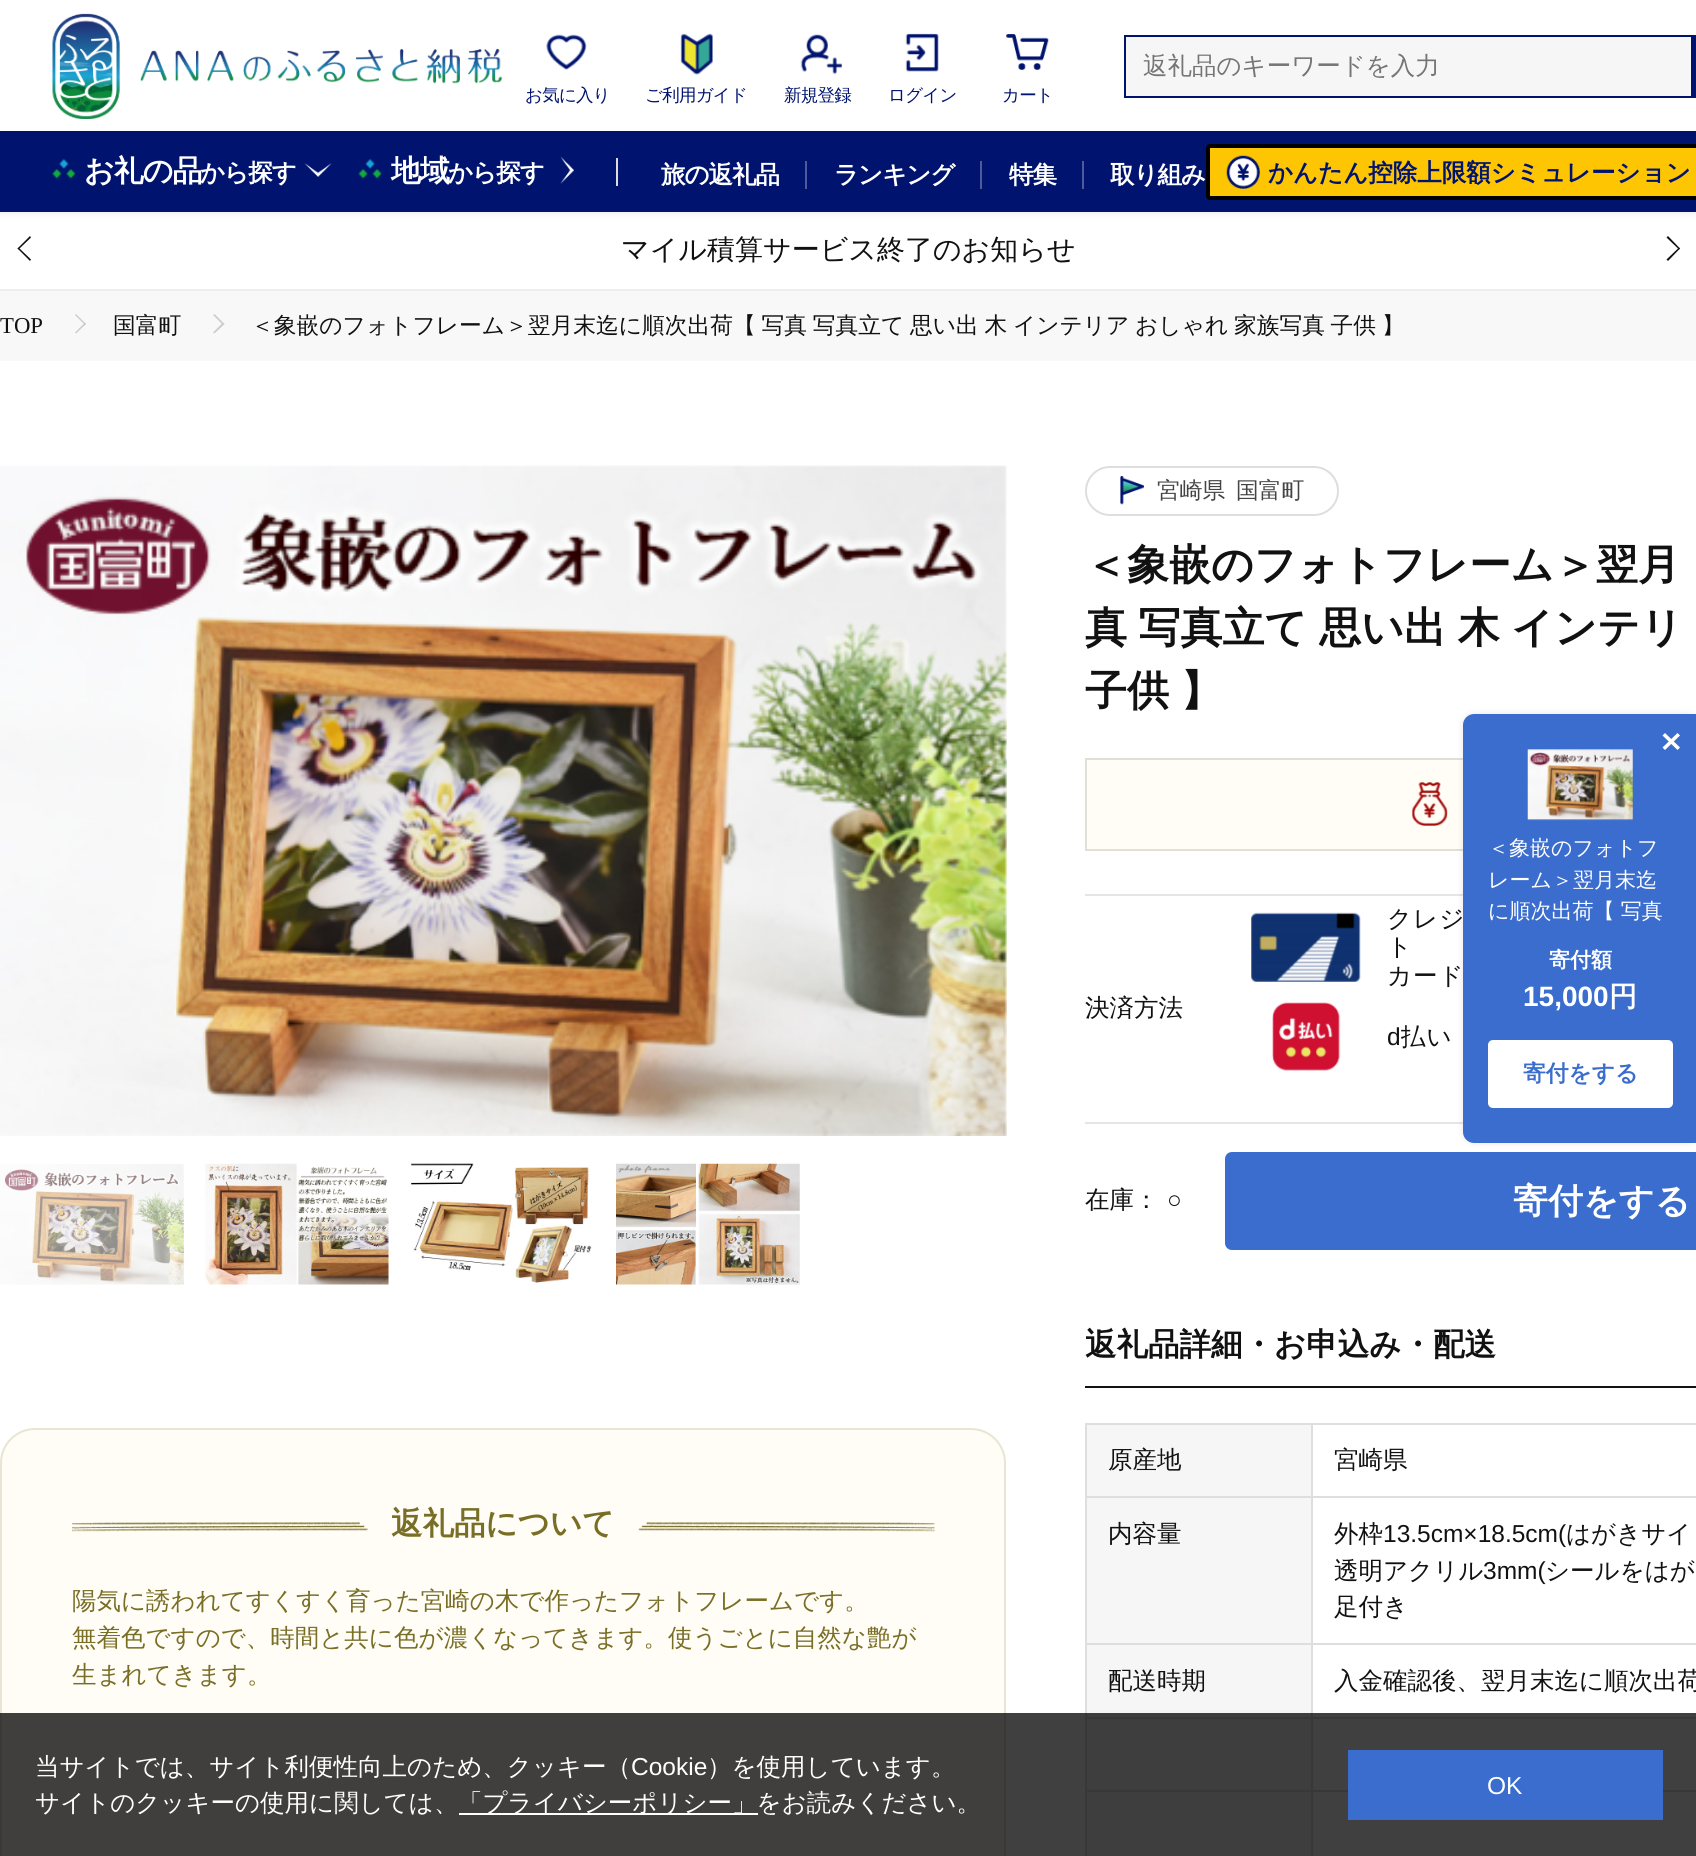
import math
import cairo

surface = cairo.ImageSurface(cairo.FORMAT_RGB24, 1696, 1856)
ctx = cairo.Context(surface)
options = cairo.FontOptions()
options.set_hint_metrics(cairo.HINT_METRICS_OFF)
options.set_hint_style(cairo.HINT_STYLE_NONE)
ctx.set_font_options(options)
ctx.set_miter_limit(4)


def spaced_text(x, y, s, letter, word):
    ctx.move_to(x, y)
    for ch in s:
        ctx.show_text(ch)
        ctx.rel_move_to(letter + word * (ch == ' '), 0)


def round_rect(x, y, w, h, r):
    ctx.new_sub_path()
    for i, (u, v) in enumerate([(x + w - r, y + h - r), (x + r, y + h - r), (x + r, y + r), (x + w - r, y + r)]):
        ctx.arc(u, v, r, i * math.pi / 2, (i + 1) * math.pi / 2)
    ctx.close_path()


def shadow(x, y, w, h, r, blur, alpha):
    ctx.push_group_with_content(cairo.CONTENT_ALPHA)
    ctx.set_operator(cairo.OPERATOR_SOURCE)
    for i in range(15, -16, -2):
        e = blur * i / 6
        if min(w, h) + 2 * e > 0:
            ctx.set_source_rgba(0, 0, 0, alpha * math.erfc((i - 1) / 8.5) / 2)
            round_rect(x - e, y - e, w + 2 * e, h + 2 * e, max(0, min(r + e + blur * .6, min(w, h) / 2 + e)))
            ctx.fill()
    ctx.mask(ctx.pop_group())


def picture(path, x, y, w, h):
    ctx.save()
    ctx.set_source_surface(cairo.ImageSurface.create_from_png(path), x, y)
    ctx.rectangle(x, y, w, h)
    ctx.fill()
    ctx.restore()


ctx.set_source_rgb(1, 1, 1)
ctx.paint()
ctx.set_source_rgb(0, 0, 0)
shadow(0, 131, 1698, 81, 0, 4.5, 0.1)
ctx.set_source_rgb(0, 0.078, 0.431)
ctx.rectangle(0, 131, 1696, 81)
ctx.fill()
ctx.set_source_rgb(0.996, 0.773, 0.012)
round_rect(1208, 146, 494, 52, 2)
ctx.fill_preserve()
ctx.set_source_rgb(0, 0, 0)
ctx.set_line_width(4)
ctx.stroke()
ctx.set_source_rgb(0, 0, 0)
shadow(0, 0, 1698, 131, 0, 4.5, 0.1)
ctx.set_source_rgb(1, 1, 1)
ctx.rectangle(0, 0, 1696, 131)
ctx.fill()
picture("img1.png", 52, 13, 451, 106)
ctx.set_source_rgb(0.961, 0.961, 0.961)
ctx.rectangle(1126, 37, 565, 59)
ctx.fill()
ctx.set_source_rgb(0, 0.078, 0.431)
ctx.rectangle(1124, 35, 567, 2)
ctx.fill()
ctx.rectangle(1124, 96, 567, 2)
ctx.fill()
ctx.rectangle(1124, 35, 2, 63)
ctx.fill()
ctx.select_font_face("WenQuanYi Zen Hei Medium")
ctx.set_font_size(24.5)
ctx.set_source_rgb(0.459, 0.459, 0.459)
ctx.move_to(1143, 74)
ctx.show_text("返礼品のキーワードを入力")
ctx.set_source_rgb(0, 0.078, 0.431)
ctx.rectangle(1691, 35, 5, 63)
ctx.fill()
picture("img2.png", 546, 34, 41, 36)
ctx.set_font_size(17.5)
spaced_text(525, 101, "お気に入り", -0.75, 0)
picture("img3.png", 680, 33, 33, 42)
spaced_text(645, 101, "ご利用ガイド", -0.75, 0)
picture("img4.png", 800, 34, 42, 41)
spaced_text(784, 101, "新規登録", -0.75, 0)
picture("img5.png", 905, 33, 34, 39)
spaced_text(888, 101, "ログイン", -0.75, 0)
picture("img6.png", 1006, 34, 43, 36)
spaced_text(1002, 101, "カート", -0.75, 0)
ctx.set_source_rgb(0.933, 0.933, 0.933)
ctx.rectangle(0, 289, 1696, 2)
ctx.fill()
picture("img7.png", 52, 158, 24, 21)
ctx.select_font_face("WenQuanYi Zen Hei", cairo.FONT_SLANT_NORMAL, cairo.FONT_WEIGHT_BOLD)
ctx.set_font_size(30)
ctx.set_source_rgb(1, 1, 1)
spaced_text(84, 181, "お礼の品", -1, 0)
ctx.set_font_size(24.5)
spaced_text(200, 181, "から探す", -1, 0)
picture("img8.png", 304, 163, 28, 14)
picture("img9.png", 358, 158, 24, 21)
ctx.set_font_size(30)
spaced_text(391, 181, "地域", -1, 0)
ctx.set_font_size(24.5)
spaced_text(448, 181, "から探す", -1, 0)
picture("img10.png", 560, 156, 14, 28)
ctx.set_source_rgb(0.863, 0.863, 0.863)
ctx.rectangle(616, 158, 2, 28)
ctx.fill()
ctx.set_source_rgb(1, 1, 1)
spaced_text(661, 183, "旅の返礼品", -1, 0)
ctx.set_source_rgb(0.302, 0.357, 0.604)
ctx.rectangle(805, 161, 2, 28)
ctx.fill()
ctx.set_source_rgb(1, 1, 1)
spaced_text(834, 183, "ランキング", -1, 0)
ctx.set_source_rgb(0.302, 0.357, 0.604)
ctx.rectangle(980, 161, 2, 28)
ctx.fill()
ctx.set_source_rgb(1, 1, 1)
spaced_text(1009, 183, "特集", -1, 0)
ctx.set_source_rgb(0.302, 0.357, 0.604)
ctx.rectangle(1082, 161, 2, 28)
ctx.fill()
ctx.set_source_rgb(1, 1, 1)
spaced_text(1110, 183, "取り組み", -1, 0)
picture("img11.png", 1226, 155, 34, 34)
ctx.set_source_rgb(0, 0.078, 0.431)
ctx.move_to(1268, 181)
ctx.show_text("かんたん控除上限額シミュレーション")
ctx.set_source_rgb(0.067, 0.067, 0.067)
ctx.new_path()
ctx.move_to(30, 261)
ctx.line_to(17.5, 248.5)
ctx.line_to(18.5, 247.5)
ctx.line_to(31, 259.5)
ctx.close_path()
ctx.fill()
ctx.new_path()
ctx.move_to(18.5, 249.5)
ctx.line_to(17.5, 248.5)
ctx.line_to(30, 236)
ctx.line_to(31, 237.5)
ctx.close_path()
ctx.fill()
ctx.new_path()
ctx.move_to(1668, 236)
ctx.line_to(1680, 248.5)
ctx.line_to(1679, 249.5)
ctx.line_to(1666.5, 237.5)
ctx.close_path()
ctx.fill()
ctx.new_path()
ctx.move_to(1679, 247.5)
ctx.line_to(1680, 248.5)
ctx.line_to(1668, 261)
ctx.line_to(1666.5, 259.5)
ctx.close_path()
ctx.fill()
ctx.select_font_face("WenQuanYi Zen Hei Medium")
ctx.set_font_size(28)
ctx.move_to(621, 259)
ctx.show_text("マイル積算サービス終了のお知らせ")
ctx.set_source_rgb(0.969, 0.969, 0.969)
ctx.rectangle(0, 291, 1696, 70)
ctx.fill()
ctx.select_font_face("Liberation Serif")
ctx.set_font_size(22.75)
ctx.set_source_rgb(0.067, 0.067, 0.067)
ctx.move_to(0, 333)
ctx.show_text("TOP")
ctx.set_source_rgb(0.8, 0.8, 0.8)
ctx.new_path()
ctx.move_to(76, 314)
ctx.line_to(86, 324)
ctx.line_to(85, 325)
ctx.line_to(75, 315)
ctx.close_path()
ctx.fill()
ctx.new_path()
ctx.move_to(85, 322.5)
ctx.line_to(86, 324)
ctx.line_to(76, 333.5)
ctx.line_to(75, 332.5)
ctx.close_path()
ctx.fill()
ctx.select_font_face("WenQuanYi Zen Hei Medium")
ctx.set_source_rgb(0.067, 0.067, 0.067)
ctx.move_to(113, 333)
ctx.show_text("国富町")
ctx.set_source_rgb(0.8, 0.8, 0.8)
ctx.new_path()
ctx.move_to(214.5, 314)
ctx.line_to(224.5, 324)
ctx.line_to(223, 325)
ctx.line_to(213, 315)
ctx.close_path()
ctx.fill()
ctx.new_path()
ctx.move_to(223, 322.5)
ctx.line_to(224.5, 324)
ctx.line_to(214.5, 333.5)
ctx.line_to(213, 332.5)
ctx.close_path()
ctx.fill()
ctx.set_source_rgb(0.067, 0.067, 0.067)
spaced_text(251, 333, "＜象嵌のフォトフレーム＞翌月末迄に順次出荷【 写真 写真立て 思い出 木 インテリア おしゃれ 家族写真 子供 】", 0, -1.1)
picture("img12.png", 0, 465, 1007, 671)
picture("img13.png", 0, 1164, 184, 121)
picture("img14.png", 205, 1163, 184, 122)
picture("img15.png", 411, 1163, 181, 120)
picture("img16.png", 616, 1163, 184, 122)
ctx.set_source_rgb(1, 0.992, 0.961)
round_rect(1, 1429, 1004, 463, 34)
ctx.fill_preserve()
ctx.set_source_rgb(0.914, 0.898, 0.824)
ctx.set_line_width(2)
ctx.stroke()
picture("img17.png", 72, 1522, 863, 10)
ctx.select_font_face("WenQuanYi Zen Hei", cairo.FONT_SLANT_NORMAL, cairo.FONT_WEIGHT_BOLD)
ctx.set_font_size(31.5)
ctx.set_source_rgb(0.475, 0.431, 0.145)
ctx.move_to(391, 1534)
ctx.show_text("返礼品について")
ctx.select_font_face("WenQuanYi Zen Hei Medium")
ctx.set_font_size(24.5)
ctx.move_to(72, 1609)
ctx.show_text("陽気に誘われてすくすく育った宮崎の木で作ったフォトフレームです。")
ctx.move_to(72, 1646)
ctx.show_text("無着色ですので、時間と共に色が濃くなってきます。使うごとに自然な艶が")
ctx.move_to(72, 1683)
ctx.show_text("生まれてきます。")
round_rect(1086, 467, 252, 48, 24)
ctx.set_source_rgb(0.871, 0.871, 0.871)
ctx.stroke()
picture("img18.png", 1120, 476, 24, 29)
ctx.set_font_size(22.75)
ctx.set_source_rgb(0.267, 0.267, 0.267)
ctx.move_to(1157, 498)
ctx.show_text("宮崎県")
ctx.move_to(1236, 498)
ctx.show_text("国富町")
ctx.select_font_face("WenQuanYi Zen Hei", cairo.FONT_SLANT_NORMAL, cairo.FONT_WEIGHT_BOLD)
ctx.set_font_size(42)
ctx.set_source_rgb(0.067, 0.067, 0.067)
spaced_text(1085, 579, "＜象嵌のフォトフレーム＞翌月", 0, -1)
spaced_text(1085, 642, "真 写真立て 思い出 木 インテリ", 0, -1)
spaced_text(1085, 705, "子供 】", 0, -1)
ctx.set_source_rgb(1, 0.992, 0.961)
ctx.rectangle(1087, 760, 376, 89)
ctx.fill()
ctx.rectangle(1086, 759, 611, 91)
ctx.set_source_rgb(0.882, 0.878, 0.847)
ctx.stroke()
picture("img19.png", 1412, 782, 36, 44)
ctx.set_source_rgb(0.227, 0.427, 0.808)
ctx.new_path()
ctx.move_to(1232, 1152)
ctx.line_to(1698, 1152)
ctx.line_to(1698, 1250)
ctx.line_to(1232, 1250)
ctx.curve_to(1228, 1250, 1225, 1247, 1225, 1243)
ctx.line_to(1225, 1159)
ctx.curve_to(1225, 1155, 1228, 1152, 1232, 1152)
ctx.close_path()
ctx.fill()
ctx.set_source_rgb(0.898, 0.898, 0.898)
ctx.rectangle(1085, 894, 378, 2)
ctx.fill()
ctx.rectangle(1085, 1122, 378, 2)
ctx.fill()
ctx.set_source_rgb(0, 0, 0)
shadow(1463, 714, 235, 429, 11, 3.5, 0.1)
ctx.set_source_rgb(0.227, 0.427, 0.808)
ctx.new_path()
ctx.move_to(1474, 714)
ctx.line_to(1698, 714)
ctx.line_to(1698, 1143)
ctx.line_to(1474, 1143)
ctx.curve_to(1468, 1143, 1463, 1138, 1463, 1132)
ctx.line_to(1463, 725)
ctx.curve_to(1463, 719, 1468, 714, 1474, 714)
ctx.close_path()
ctx.fill()
ctx.set_source_rgb(1, 1, 1)
ctx.new_path()
ctx.move_to(1665, 733)
ctx.line_to(1680, 747.5)
ctx.line_to(1677.5, 750)
ctx.line_to(1662.5, 735.5)
ctx.close_path()
ctx.fill()
ctx.new_path()
ctx.move_to(1680, 735.5)
ctx.line_to(1665, 750)
ctx.line_to(1662.5, 747.5)
ctx.line_to(1677.5, 733)
ctx.close_path()
ctx.fill()
picture("img20.png", 1527, 749, 106, 72)
ctx.select_font_face("WenQuanYi Zen Hei Medium")
ctx.set_font_size(21)
ctx.move_to(1488, 855)
ctx.show_text("＜象嵌のフォトフ")
ctx.move_to(1488, 887)
ctx.show_text("レーム＞翌月末迄")
ctx.move_to(1488, 918)
ctx.show_text("に順次出荷【 写真")
ctx.select_font_face("WenQuanYi Zen Hei", cairo.FONT_SLANT_NORMAL, cairo.FONT_WEIGHT_BOLD)
ctx.move_to(1549, 967)
ctx.show_text("寄付額")
ctx.select_font_face("Liberation Sans", cairo.FONT_SLANT_NORMAL, cairo.FONT_WEIGHT_BOLD)
ctx.set_font_size(28)
ctx.move_to(1523, 1006)
ctx.show_text("15,000")
ctx.select_font_face("WenQuanYi Zen Hei", cairo.FONT_SLANT_NORMAL, cairo.FONT_WEIGHT_BOLD)
ctx.move_to(1609, 1006)
ctx.show_text("円")
round_rect(1488, 1040, 185, 68, 5)
ctx.fill()
ctx.set_font_size(22.75)
ctx.set_source_rgb(0.227, 0.427, 0.808)
ctx.move_to(1523, 1081)
ctx.show_text("寄付をする")
ctx.select_font_face("WenQuanYi Zen Hei Medium")
ctx.set_font_size(24.5)
ctx.set_source_rgb(0.067, 0.067, 0.067)
ctx.move_to(1085, 1208)
ctx.show_text("在庫：")
ctx.select_font_face("Liberation Sans")
ctx.move_to(1167, 1208)
ctx.show_text("○")
ctx.select_font_face("WenQuanYi Zen Hei", cairo.FONT_SLANT_NORMAL, cairo.FONT_WEIGHT_BOLD)
ctx.set_font_size(35)
ctx.set_source_rgb(1, 1, 1)
ctx.move_to(1513, 1213)
ctx.show_text("寄付をする")
ctx.select_font_face("WenQuanYi Zen Hei Medium")
ctx.set_font_size(24.5)
ctx.set_source_rgb(0.067, 0.067, 0.067)
ctx.move_to(1085, 1016)
ctx.show_text("決済方法")
picture("img21.png", 1251, 912, 110, 70)
spaced_text(1387, 927, "クレジ", 1, 0)
spaced_text(1387, 955, "ト", 1, 0)
spaced_text(1387, 984, "カード", 1, 0)
picture("img22.png", 1272, 1002, 69, 69)
ctx.select_font_face("Liberation Sans")
spaced_text(1387, 1045, "d", 1, 0)
ctx.select_font_face("WenQuanYi Zen Hei Medium")
spaced_text(1401, 1045, "払い", 1, 0)
ctx.rectangle(1085, 1386, 611, 2)
ctx.fill()
ctx.select_font_face("WenQuanYi Zen Hei", cairo.FONT_SLANT_NORMAL, cairo.FONT_WEIGHT_BOLD)
ctx.set_font_size(31.5)
ctx.move_to(1085, 1355)
ctx.show_text("返礼品詳細・お申込み・配送")
ctx.set_source_rgb(0.961, 0.961, 0.961)
ctx.rectangle(1087, 1425, 224, 71)
ctx.fill()
ctx.set_source_rgb(0.871, 0.871, 0.871)
ctx.rectangle(1085, 1423, 611, 2)
ctx.fill()
ctx.rectangle(1311, 1423, 2, 73)
ctx.fill()
ctx.rectangle(1085, 1423, 2, 73)
ctx.fill()
ctx.select_font_face("WenQuanYi Zen Hei Medium")
ctx.set_font_size(24.5)
ctx.set_source_rgb(0.067, 0.067, 0.067)
ctx.move_to(1108, 1468)
ctx.show_text("原産地")
ctx.move_to(1334, 1468)
ctx.show_text("宮崎県")
ctx.set_source_rgb(0.961, 0.961, 0.961)
ctx.rectangle(1087, 1498, 224, 145)
ctx.fill()
ctx.set_source_rgb(0.871, 0.871, 0.871)
ctx.rectangle(1085, 1496, 611, 2)
ctx.fill()
ctx.rectangle(1311, 1496, 2, 147)
ctx.fill()
ctx.rectangle(1085, 1496, 2, 147)
ctx.fill()
ctx.set_source_rgb(0.067, 0.067, 0.067)
ctx.move_to(1108, 1542)
ctx.show_text("内容量")
ctx.move_to(1334, 1542)
ctx.show_text("外枠")
ctx.select_font_face("Liberation Sans")
ctx.move_to(1383, 1542)
ctx.show_text("13.5cm×18.5cm(")
ctx.select_font_face("WenQuanYi Zen Hei Medium")
ctx.move_to(1566, 1542)
ctx.show_text("はがきサイ")
ctx.move_to(1334, 1579)
ctx.show_text("透明アクリル")
ctx.select_font_face("Liberation Sans")
ctx.move_to(1483, 1579)
ctx.show_text("3mm(")
ctx.select_font_face("WenQuanYi Zen Hei Medium")
ctx.move_to(1545, 1579)
ctx.show_text("シールをはが")
ctx.move_to(1334, 1615)
ctx.show_text("足付き")
ctx.set_source_rgb(0.961, 0.961, 0.961)
ctx.rectangle(1087, 1645, 224, 72)
ctx.fill()
ctx.set_source_rgb(0.871, 0.871, 0.871)
ctx.rectangle(1085, 1643, 611, 2)
ctx.fill()
ctx.rectangle(1311, 1643, 2, 74)
ctx.fill()
ctx.rectangle(1085, 1643, 2, 74)
ctx.fill()
ctx.set_source_rgb(0.067, 0.067, 0.067)
ctx.move_to(1108, 1689)
ctx.show_text("配送時期")
ctx.move_to(1334, 1689)
ctx.show_text("入金確認後、翌月末迄に順次出荷")
ctx.set_source_rgb(0.961, 0.961, 0.961)
ctx.rectangle(1087, 1719, 224, 71)
ctx.fill()
ctx.set_source_rgb(0.871, 0.871, 0.871)
ctx.rectangle(1085, 1717, 611, 2)
ctx.fill()
ctx.rectangle(1311, 1717, 2, 73)
ctx.fill()
ctx.rectangle(1085, 1717, 2, 73)
ctx.fill()
ctx.set_source_rgb(0.961, 0.961, 0.961)
ctx.rectangle(1087, 1792, 224, 64)
ctx.fill()
ctx.set_source_rgb(0.871, 0.871, 0.871)
ctx.rectangle(1085, 1790, 611, 2)
ctx.fill()
ctx.rectangle(1311, 1790, 2, 66)
ctx.fill()
ctx.rectangle(1085, 1790, 2, 66)
ctx.fill()
ctx.set_source_rgba(0, 0, 0, 0.75)
ctx.rectangle(0, 1713, 1696, 143)
ctx.fill()
ctx.set_source_rgb(1, 1, 1)
ctx.move_to(35, 1775)
ctx.show_text("当サイトでは、サイト利便性向上のため、クッキー（")
ctx.select_font_face("Liberation Sans")
ctx.move_to(631, 1775)
ctx.show_text("Cookie")
ctx.select_font_face("WenQuanYi Zen Hei Medium")
ctx.move_to(707, 1775)
ctx.show_text("）を使用しています。")
ctx.move_to(35, 1811)
ctx.show_text("サイトのクッキーの使用に関しては、")
ctx.rectangle(459, 1813, 299, 2)
ctx.fill()
ctx.move_to(458, 1811)
ctx.show_text("「プライバシーポリシー」をお読みください。")
ctx.set_source_rgb(0.227, 0.427, 0.808)
ctx.rectangle(1348, 1750, 315, 70)
ctx.fill()
ctx.select_font_face("Liberation Sans")
ctx.set_source_rgb(1, 1, 1)
ctx.move_to(1487, 1794)
ctx.show_text("OK")
surface.write_to_png("page.png")
